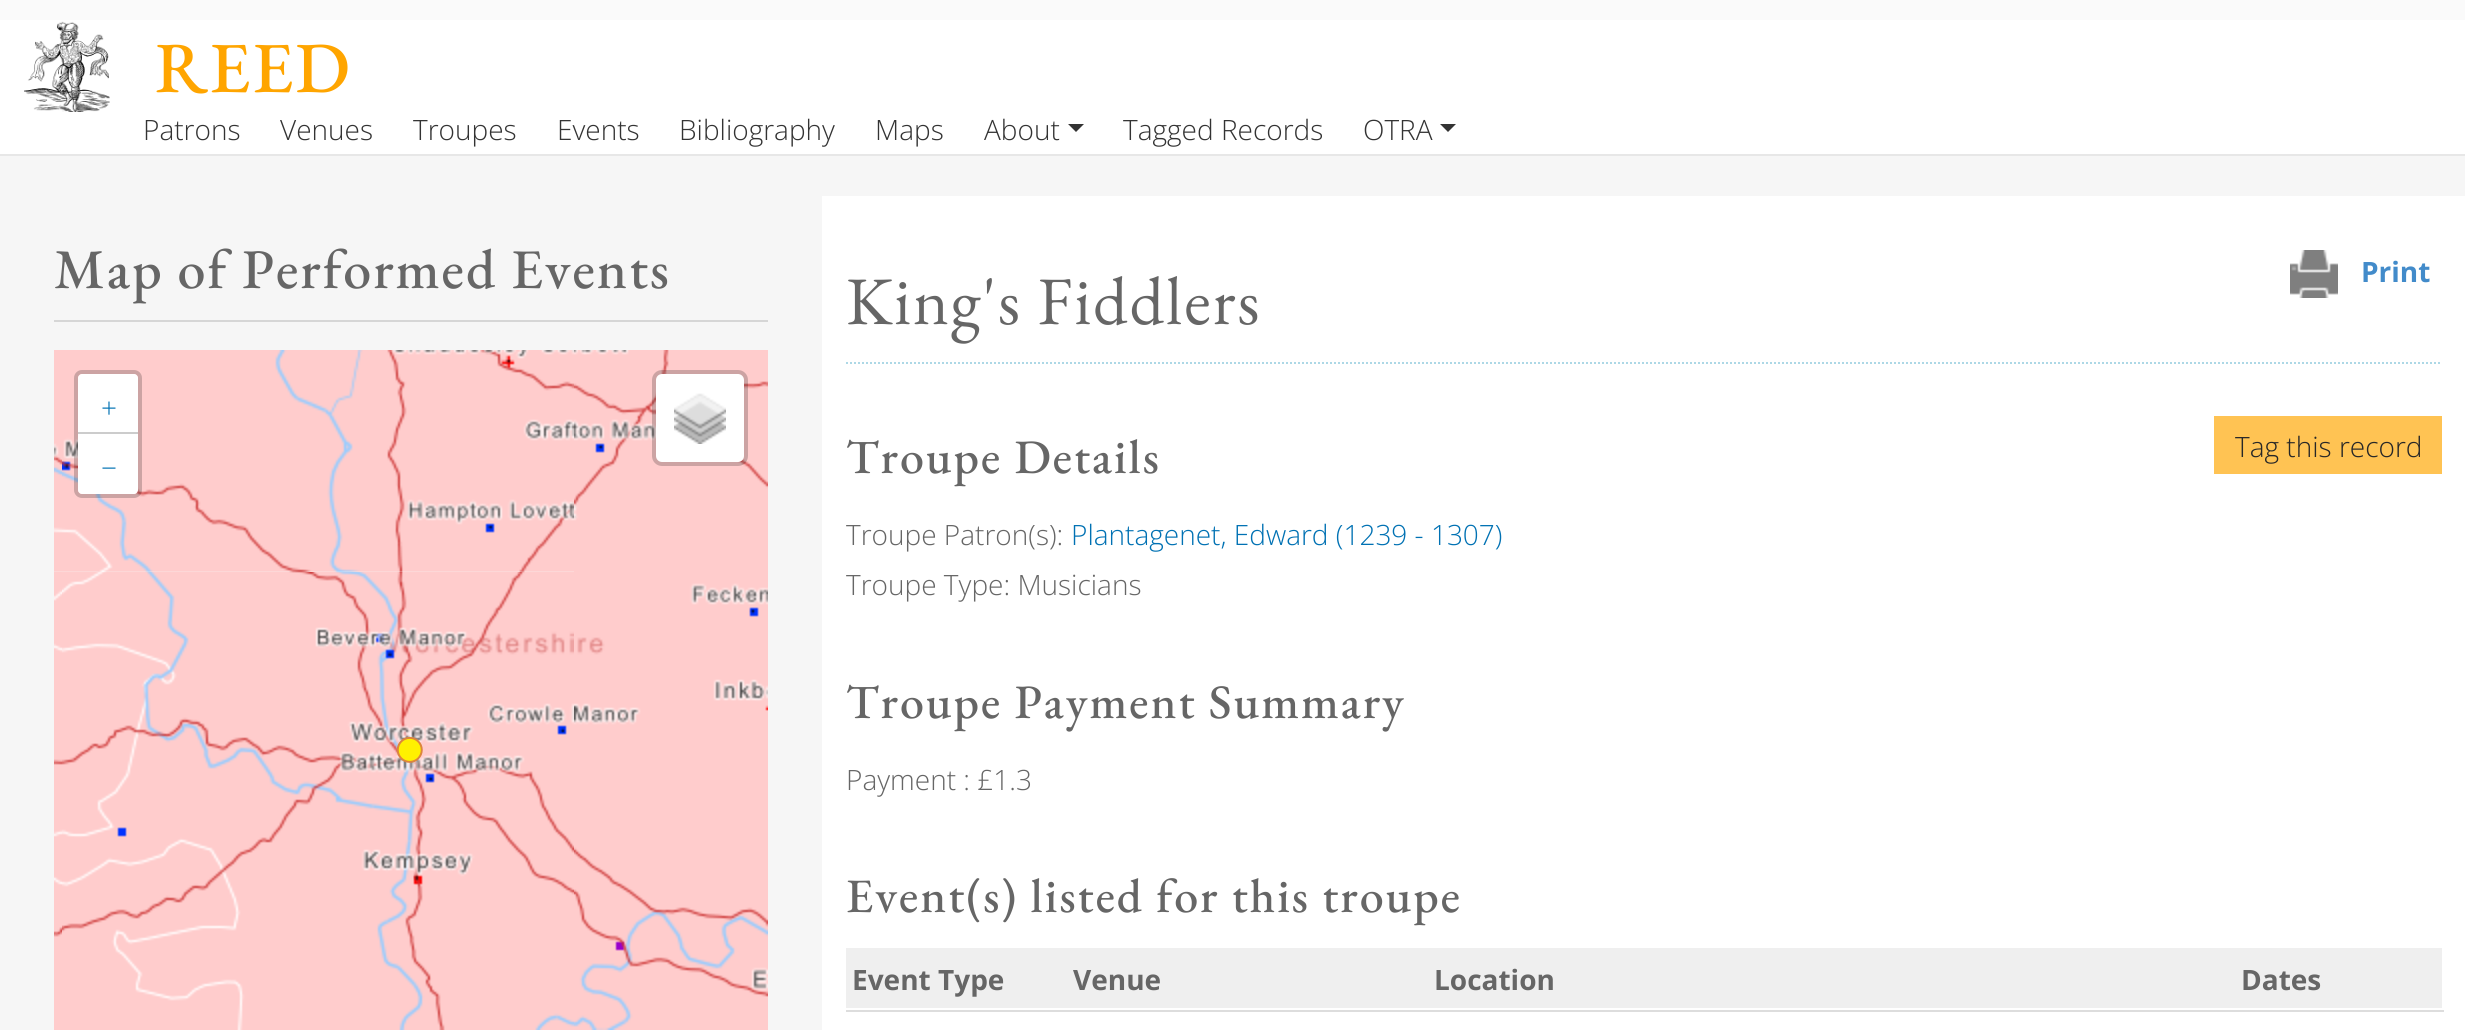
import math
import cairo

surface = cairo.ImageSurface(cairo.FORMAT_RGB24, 2465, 1030)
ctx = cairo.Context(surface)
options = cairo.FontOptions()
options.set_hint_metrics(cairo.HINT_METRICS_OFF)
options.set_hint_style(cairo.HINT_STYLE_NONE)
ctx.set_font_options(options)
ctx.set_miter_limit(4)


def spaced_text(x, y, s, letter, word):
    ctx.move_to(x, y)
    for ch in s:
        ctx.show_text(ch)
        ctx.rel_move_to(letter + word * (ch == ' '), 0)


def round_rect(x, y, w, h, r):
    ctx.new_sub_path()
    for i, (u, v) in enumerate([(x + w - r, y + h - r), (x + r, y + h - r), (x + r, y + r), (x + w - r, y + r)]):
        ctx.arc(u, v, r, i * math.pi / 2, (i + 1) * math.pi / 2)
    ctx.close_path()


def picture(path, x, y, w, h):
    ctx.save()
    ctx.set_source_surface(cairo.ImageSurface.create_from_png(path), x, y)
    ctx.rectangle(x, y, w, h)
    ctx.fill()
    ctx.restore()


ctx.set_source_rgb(0.98, 0.98, 0.98)
ctx.paint()
ctx.set_source_rgb(1, 1, 1)
ctx.rectangle(0, 20, 2465, 134)
ctx.fill()
ctx.set_source_rgb(0.906, 0.906, 0.906)
ctx.rectangle(0, 154, 2465, 2)
ctx.fill()
picture("img1.png", 24, 21, 86, 91)
ctx.select_font_face("EB Garamond Medium")
ctx.set_font_size(72)
ctx.set_source_rgb(1, 0.647, 0)
spaced_text(155, 92, "REED", 2, 0)
ctx.select_font_face("Open Sans Light")
ctx.set_font_size(28)
ctx.set_source_rgb(0.2, 0.2, 0.2)
ctx.move_to(143, 140)
ctx.show_text("Patrons")
ctx.move_to(280, 140)
ctx.show_text("Venues")
ctx.move_to(413, 140)
ctx.show_text("Troupes")
ctx.move_to(557, 140)
ctx.show_text("Events")
ctx.move_to(679, 140)
ctx.show_text("Bibliography")
ctx.move_to(875, 140)
ctx.show_text("Maps")
ctx.move_to(984, 140)
ctx.show_text("About")
ctx.new_path()
ctx.move_to(1068, 124)
ctx.line_to(1084, 124)
ctx.line_to(1076, 132)
ctx.close_path()
ctx.fill()
ctx.move_to(1123, 140)
ctx.show_text("Tagged Records")
ctx.move_to(1363, 140)
ctx.show_text("OTRA")
ctx.new_path()
ctx.move_to(1440, 124)
ctx.line_to(1456, 124)
ctx.line_to(1448, 132)
ctx.close_path()
ctx.fill()
ctx.set_source_rgb(0.961, 0.961, 0.961)
ctx.rectangle(0, 156, 2465, 874)
ctx.fill()
ctx.set_source_rgb(0.839, 0.839, 0.839)
ctx.rectangle(54, 320, 714, 2)
ctx.fill()
ctx.select_font_face("EB Garamond Medium")
ctx.set_font_size(56)
ctx.set_source_rgb(0.4, 0.4, 0.4)
spaced_text(54, 288, "Map of Performed Events", 2, 0)
picture("img2.png", 54, 350, 8, 222)
picture("img5.png", 62, 572, 512, 458)
picture("img3.png", 62, 350, 512, 223)
ctx.set_source_rgb(1, 0.8, 0.8)
ctx.rectangle(574, 350, 194, 222)
ctx.fill()
picture("img4.png", 54, 572, 8, 458)
picture("img6.png", 574, 572, 194, 458)
picture("img7.png", 54, 455, 8, 10)
picture("img22.png", 117, 633, 450, 252)
picture("img11.png", 62, 572, 512, 458)
picture("img18.png", 501, 355, 14, 14)
picture("img21.png", 62, 461, 433, 72)
picture("img8.png", 62, 350, 512, 223)
picture("img20.png", 595, 443, 10, 10)
picture("img9.png", 574, 350, 194, 157)
picture("img10.png", 54, 759, 8, 178)
picture("img23.png", 615, 607, 144, 344)
picture("img12.png", 574, 847, 194, 150)
picture("img13.png", 54, 443, 5, 16)
picture("img14.png", 63, 350, 511, 181)
picture("img15.png", 574, 350, 82, 171)
picture("img16.png", 315, 627, 259, 254)
picture("img19.png", 765, 705, 3, 6)
picture("img17.png", 574, 583, 194, 408)
picture("img24.png", 396, 736, 27, 27)
round_rect(76, 372, 64, 124, 6)
ctx.set_source_rgba(0, 0, 0, 0.2)
ctx.set_line_width(4)
ctx.stroke()
ctx.set_source_rgb(1, 1, 1)
ctx.new_path()
ctx.move_to(82, 374)
ctx.line_to(134, 374)
ctx.curve_to(136, 374, 138, 376, 138, 378)
ctx.line_to(138, 434)
ctx.line_to(78, 434)
ctx.line_to(78, 378)
ctx.curve_to(78, 376, 80, 374, 82, 374)
ctx.close_path()
ctx.fill()
ctx.set_source_rgb(0.8, 0.8, 0.8)
ctx.rectangle(78, 432, 60, 2)
ctx.fill()
ctx.select_font_face("Open Sans Light")
ctx.set_font_size(28)
ctx.set_source_rgb(0, 0.443, 0.702)
ctx.move_to(101, 418)
ctx.show_text("+")
ctx.set_source_rgb(1, 1, 1)
ctx.new_path()
ctx.move_to(78, 434)
ctx.line_to(138, 434)
ctx.line_to(138, 490)
ctx.curve_to(138, 492, 136, 494, 134, 494)
ctx.line_to(82, 494)
ctx.curve_to(80, 494, 78, 492, 78, 490)
ctx.close_path()
ctx.fill()
ctx.set_source_rgb(0, 0.443, 0.702)
ctx.move_to(101, 478)
ctx.show_text("−")
ctx.set_source_rgb(1, 1, 1)
round_rect(656, 374, 88, 88, 6)
ctx.fill()
round_rect(654, 372, 92, 92, 8)
ctx.set_source_rgba(0, 0, 0, 0.2)
ctx.stroke()
picture("img25.png", 674, 393, 52, 51)
ctx.set_source_rgb(1, 1, 1)
ctx.rectangle(822, 196, 1643, 834)
ctx.fill()
picture("img26.png", 2290, 250, 48, 48)
ctx.select_font_face("Open Sans", cairo.FONT_SLANT_NORMAL, cairo.FONT_WEIGHT_BOLD)
ctx.set_source_rgb(0.259, 0.545, 0.792)
ctx.move_to(2361, 282)
ctx.show_text("Print")
ctx.new_path()
ctx.move_to(846, 363)
ctx.line_to(2442, 363)
ctx.set_source_rgb(0.678, 0.847, 0.902)
ctx.set_line_width(2)
ctx.set_dash([2, 2])
ctx.stroke()
ctx.select_font_face("EB Garamond")
ctx.set_font_size(68)
ctx.set_source_rgb(0.4, 0.4, 0.4)
spaced_text(846, 324, "King's Fiddlers", 2, 0)
ctx.select_font_face("EB Garamond Medium")
ctx.set_font_size(48)
spaced_text(846, 473, "Troupe Details", 2, 0)
ctx.select_font_face("Open Sans Light")
ctx.set_font_size(28)
ctx.move_to(846, 545)
ctx.show_text("Troupe Patron(s):")
ctx.set_source_rgb(0, 0.443, 0.702)
ctx.move_to(1071, 545)
ctx.show_text("Plantagenet, Edward (1239 - 1307)")
ctx.set_source_rgb(0.4, 0.4, 0.4)
ctx.move_to(846, 595)
ctx.show_text("Troupe Type: Musicians")
ctx.set_source_rgb(1, 0.765, 0.325)
ctx.rectangle(2214, 416, 228, 58)
ctx.fill()
ctx.set_source_rgb(0.153, 0.153, 0.153)
ctx.move_to(2235, 457)
ctx.show_text("Tag this record")
ctx.select_font_face("EB Garamond Medium")
ctx.set_font_size(48)
ctx.set_source_rgb(0.4, 0.4, 0.4)
spaced_text(846, 718, "Troupe Payment Summary", 2, 0)
ctx.select_font_face("Open Sans Light")
ctx.set_font_size(28)
ctx.move_to(846, 790)
ctx.show_text("Payment : £1.3")
ctx.select_font_face("EB Garamond Medium")
ctx.set_font_size(48)
spaced_text(846, 912, "Event(s) listed for this troupe", 2, 0)
ctx.set_source_rgb(0.937, 0.937, 0.937)
ctx.rectangle(846, 948, 1596, 60)
ctx.fill()
ctx.select_font_face("Open Sans", cairo.FONT_SLANT_NORMAL, cairo.FONT_WEIGHT_BOLD)
ctx.set_font_size(28)
ctx.set_source_rgb(0.4, 0.4, 0.4)
ctx.move_to(852, 990)
ctx.show_text("Event Type")
ctx.move_to(1073, 990)
ctx.show_text("Venue")
ctx.move_to(1434, 990)
ctx.show_text("Location")
ctx.set_source_rgb(0.867, 0.867, 0.867)
ctx.rectangle(846, 1010, 1598, 2)
ctx.fill()
ctx.set_source_rgb(0.4, 0.4, 0.4)
ctx.move_to(2241, 990)
ctx.show_text("Dates")
surface.write_to_png("page.png")
